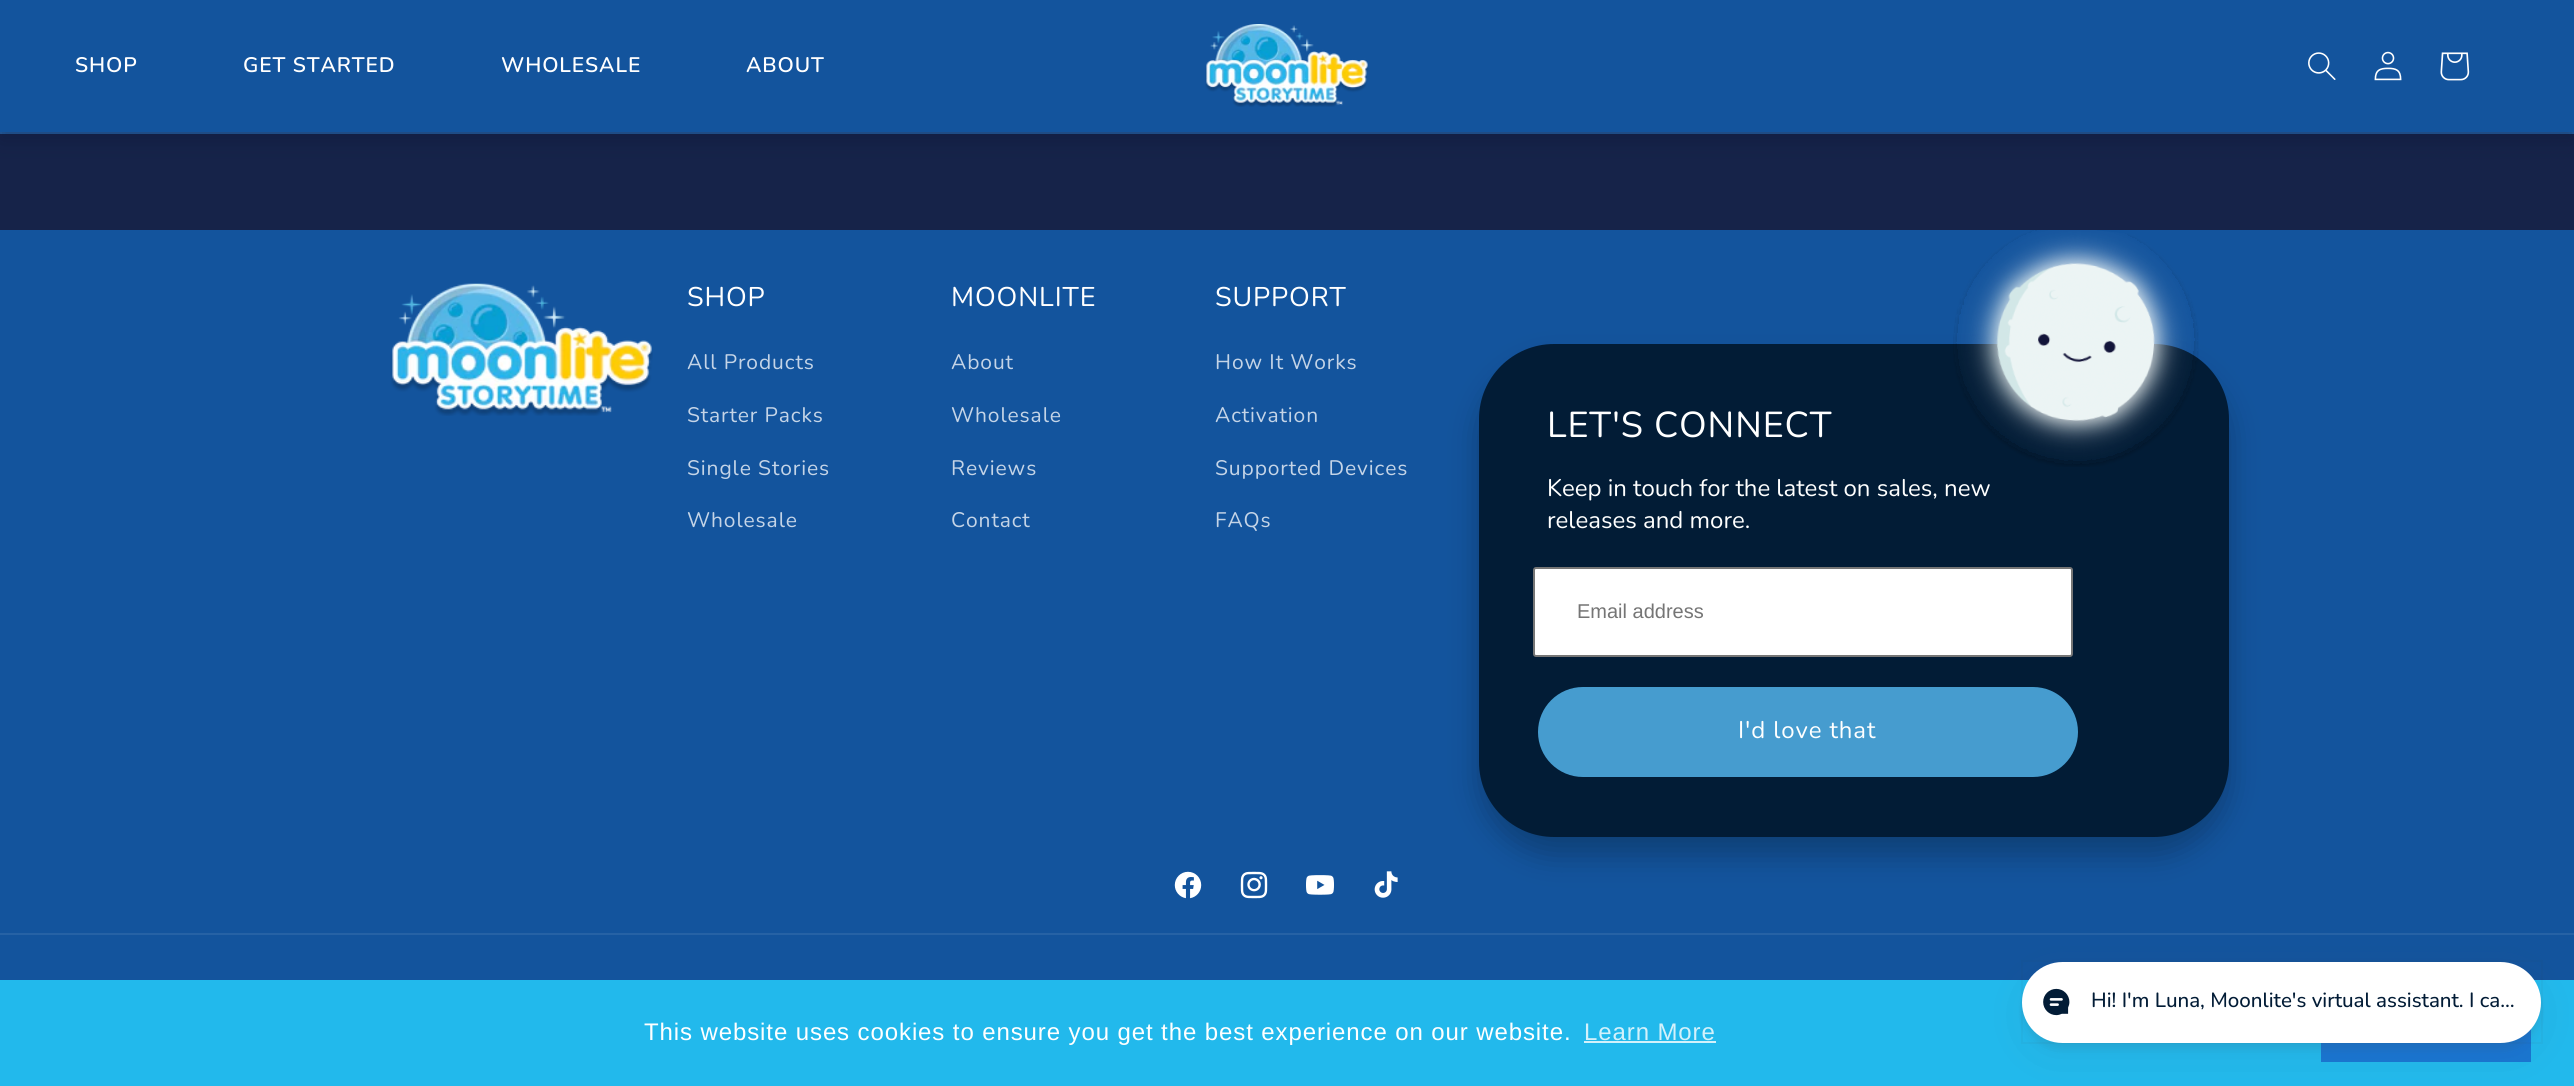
import math
import cairo

surface = cairo.ImageSurface(cairo.FORMAT_RGB24, 2574, 1086)
ctx = cairo.Context(surface)
options = cairo.FontOptions()
options.set_hint_metrics(cairo.HINT_METRICS_OFF)
options.set_hint_style(cairo.HINT_STYLE_NONE)
ctx.set_font_options(options)
ctx.set_miter_limit(4)


def spaced_text(x, y, s, letter, word):
    ctx.move_to(x, y)
    for ch in s:
        ctx.show_text(ch)
        ctx.rel_move_to(letter + word * (ch == ' '), 0)


def round_rect(x, y, w, h, r):
    ctx.new_sub_path()
    for i, (u, v) in enumerate([(x + w - r, y + h - r), (x + r, y + h - r), (x + r, y + r), (x + w - r, y + r)]):
        ctx.arc(u, v, r, i * math.pi / 2, (i + 1) * math.pi / 2)
    ctx.close_path()


def shadow(x, y, w, h, r, blur, alpha):
    ctx.push_group_with_content(cairo.CONTENT_ALPHA)
    ctx.set_operator(cairo.OPERATOR_SOURCE)
    for i in range(15, -16, -2):
        e = blur * i / 6
        if min(w, h) + 2 * e > 0:
            ctx.set_source_rgba(0, 0, 0, alpha * math.erfc((i - 1) / 8.5) / 2)
            round_rect(x - e, y - e, w + 2 * e, h + 2 * e, max(0, min(r + e + blur * .6, min(w, h) / 2 + e)))
            ctx.fill()
    ctx.mask(ctx.pop_group())


def picture(path, x, y, w, h):
    ctx.save()
    ctx.set_source_surface(cairo.ImageSurface.create_from_png(path), x, y)
    ctx.rectangle(x, y, w, h)
    ctx.fill()
    ctx.restore()


ctx.set_source_rgb(0.086, 0.137, 0.286)
ctx.paint()
ctx.set_source_rgb(0.075, 0.329, 0.616)
ctx.rectangle(0, 0, 2574, 132)
ctx.fill()
ctx.set_source_rgb(0.149, 0.384, 0.647)
ctx.rectangle(0, 132, 2574, 2)
ctx.fill()
ctx.save()
ctx.rectangle(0, 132, 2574, 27)
ctx.clip()
ctx.set_source_rgb(0.039, 0.086, 0.224)
shadow(0, 9, 2574, 132, 0, 11, 0.4)
ctx.restore()
ctx.select_font_face("Nunito SemiBold")
ctx.set_font_size(21)
ctx.set_source_rgb(1, 1, 1)
spaced_text(75, 72, "SHOP", 0.9, 0)
spaced_text(243, 72, "GET STARTED", 0.9, 0)
spaced_text(501, 72, "WHOLESALE", 0.9, 0)
spaced_text(746, 72, "ABOUT", 0.9, 0)
picture("img1.png", 1205, 24, 164, 83)
picture("img2.png", 2308, 52, 28, 28)
picture("img3.png", 2374, 51, 28, 30)
picture("img4.png", 2440, 52, 30, 29)
ctx.set_source_rgb(0.075, 0.329, 0.616)
ctx.rectangle(0, 230, 2574, 750)
ctx.fill()
picture("img5.png", 390, 283, 263, 133)
ctx.select_font_face("Nunito")
ctx.set_font_size(27)
ctx.set_source_rgb(1, 1, 1)
spaced_text(687, 306, "SHOP", 0.9, 0)
ctx.set_font_size(21)
ctx.set_source_rgb(0.769, 0.831, 0.906)
spaced_text(687, 369, "All Products", 0.9, 0)
spaced_text(687, 422, "Starter Packs", 0.9, 0)
spaced_text(687, 475, "Single Stories", 0.9, 0)
spaced_text(687, 527, "Wholesale", 0.9, 0)
ctx.set_font_size(27)
ctx.set_source_rgb(1, 1, 1)
spaced_text(951, 306, "MOONLITE", 0.9, 0)
ctx.set_font_size(21)
ctx.set_source_rgb(0.769, 0.831, 0.906)
spaced_text(951, 369, "About", 0.9, 0)
spaced_text(951, 422, "Wholesale", 0.9, 0)
spaced_text(951, 475, "Reviews", 0.9, 0)
spaced_text(951, 527, "Contact", 0.9, 0)
ctx.set_font_size(27)
ctx.set_source_rgb(1, 1, 1)
spaced_text(1215, 306, "SUPPORT", 0.9, 0)
ctx.set_font_size(21)
ctx.set_source_rgb(0.769, 0.831, 0.906)
spaced_text(1215, 369, "How It Works", 0.9, 0)
spaced_text(1215, 422, "Activation", 0.9, 0)
spaced_text(1215, 475, "Supported Devices", 0.9, 0)
spaced_text(1215, 527, "FAQs", 0.9, 0)
ctx.set_source_rgb(0, 0, 0)
shadow(1479, 362, 750, 493, 75, 15, 0.25)
ctx.set_source_rgb(0.008, 0.11, 0.212)
round_rect(1479, 344, 750, 493, 75)
ctx.fill()
picture("img6.png", 1953, 230, 246, 237)
ctx.set_font_size(36)
ctx.set_source_rgb(1, 1, 1)
spaced_text(1547, 437, "LET'S CONNECT", 0.9, 0)
ctx.set_font_size(24)
ctx.move_to(1547, 496)
ctx.show_text("Keep in touch for the latest on sales, new")
ctx.move_to(1547, 528)
ctx.show_text("releases and more.")
round_rect(1534, 568, 538, 88, 2)
ctx.fill_preserve()
ctx.set_source_rgb(0.463, 0.463, 0.463)
ctx.stroke()
ctx.select_font_face("Liberation Sans")
ctx.set_font_size(20)
ctx.set_source_rgb(0.459, 0.459, 0.459)
ctx.move_to(1577, 618)
ctx.show_text("Email address")
ctx.set_source_rgb(0.275, 0.612, 0.812)
round_rect(1538, 687, 540, 90, 45)
ctx.fill()
ctx.select_font_face("Nunito")
ctx.set_font_size(24)
ctx.set_source_rgb(1, 1, 1)
spaced_text(1738, 738, "I'd love that", 0.9, 0)
picture("img7.png", 1174, 871, 28, 28)
picture("img8.png", 1240, 871, 28, 28)
picture("img9.png", 1306, 875, 28, 20)
picture("img10.png", 1374, 871, 24, 27)
ctx.set_source_rgb(0.149, 0.384, 0.647)
ctx.rectangle(0, 933, 2574, 2)
ctx.fill()
ctx.set_source_rgb(0.133, 0.725, 0.925)
ctx.rectangle(0, 980, 2574, 106)
ctx.fill()
ctx.set_source_rgb(0.098, 0.463, 0.824)
ctx.rectangle(2321, 1029, 210, 33)
ctx.fill()
ctx.set_source_rgb(0.216, 0.247, 0.278)
shadow(2022, 974, 519, 82, 41, 19, 0.08)
shadow(2022, 968, 519, 82, 41, 3, 0.08)
ctx.rectangle(2022, 961, 520, 82)
ctx.set_source_rgba(0.216, 0.247, 0.278, 0.04)
ctx.stroke()
ctx.set_source_rgb(1, 1, 1)
round_rect(2022, 962, 519, 81, 40.5)
ctx.fill()
picture("img11.png", 2043, 988, 27, 28)
ctx.select_font_face("Nunito Medium")
ctx.set_font_size(20.5)
ctx.set_source_rgb(0.008, 0.11, 0.212)
ctx.move_to(2091, 1007)
ctx.show_text("Hi! I'm Luna, Moonlite's virtual assistant. I ca…")
ctx.select_font_face("Liberation Sans")
ctx.set_font_size(24)
ctx.set_source_rgb(1, 1, 1)
spaced_text(644, 1040, "This website uses cookies to ensure you get the best experience on our website.", 0.9, 0)
ctx.set_source_rgb(0.827, 0.945, 0.984)
spaced_text(1584, 1040, "Learn More", 0.9, 0)
ctx.rectangle(1584, 1041, 132, 2)
ctx.fill()
surface.write_to_png("page.png")
